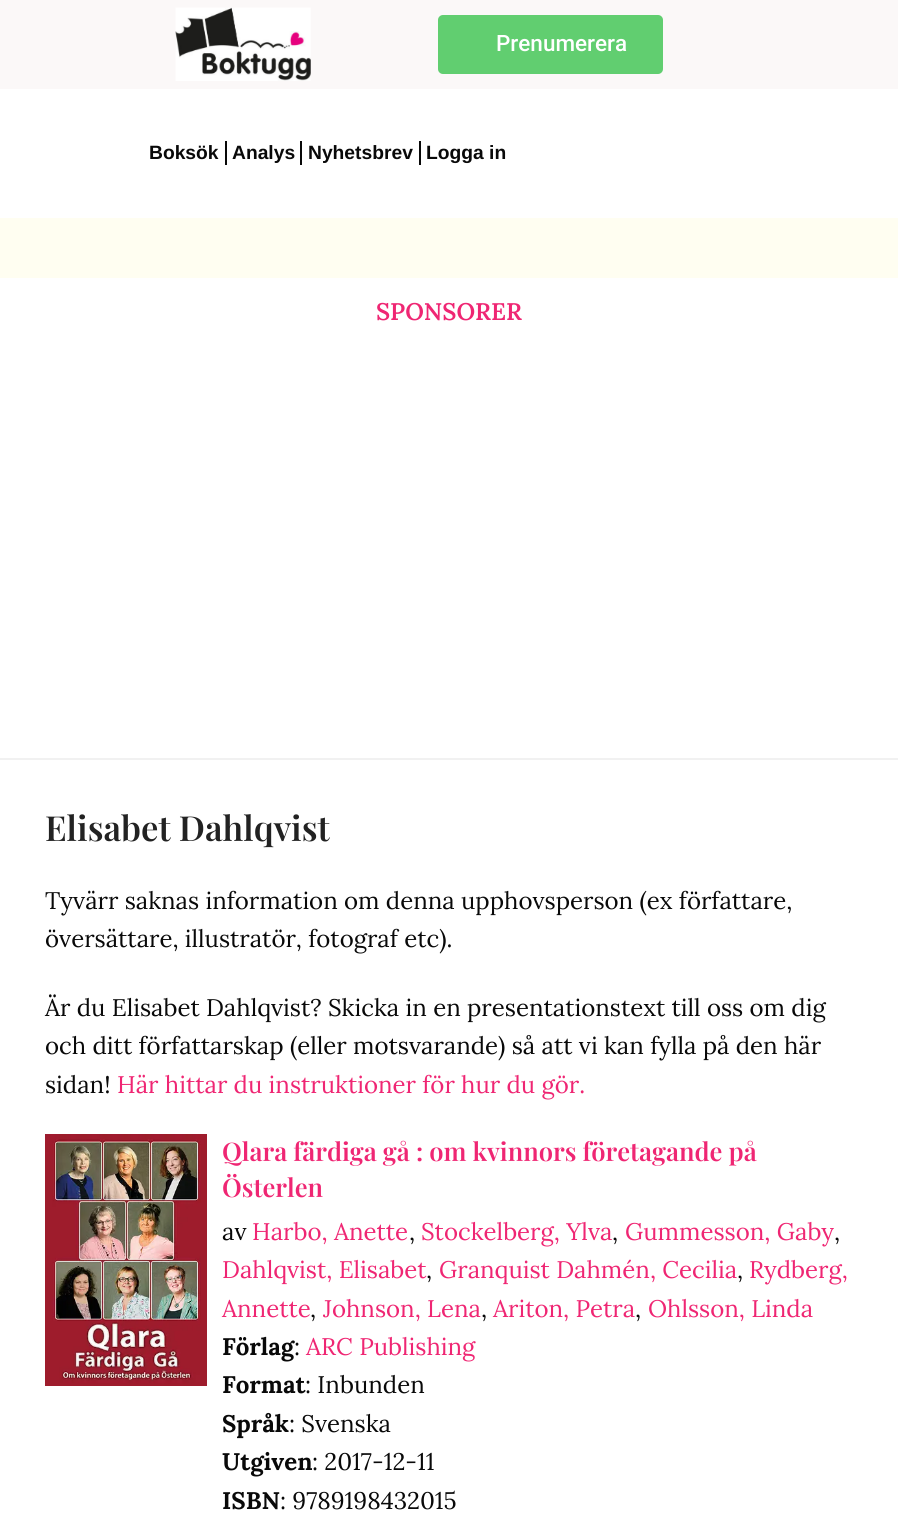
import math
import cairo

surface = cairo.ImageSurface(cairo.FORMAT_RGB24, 898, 1525)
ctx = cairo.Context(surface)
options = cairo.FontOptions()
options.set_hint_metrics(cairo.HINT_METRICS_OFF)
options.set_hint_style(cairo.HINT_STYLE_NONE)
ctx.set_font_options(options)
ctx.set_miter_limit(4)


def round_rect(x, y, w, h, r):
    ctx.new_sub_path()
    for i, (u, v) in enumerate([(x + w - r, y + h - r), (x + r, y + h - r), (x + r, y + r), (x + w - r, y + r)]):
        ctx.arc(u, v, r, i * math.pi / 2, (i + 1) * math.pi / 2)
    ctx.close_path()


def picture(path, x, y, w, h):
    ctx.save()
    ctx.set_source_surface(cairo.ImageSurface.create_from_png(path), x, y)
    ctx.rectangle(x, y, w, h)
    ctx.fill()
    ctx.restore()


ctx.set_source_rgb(1, 1, 1)
ctx.paint()
ctx.set_source_rgb(0.945, 0.945, 0.945)
ctx.rectangle(0, 758, 898, 2)
ctx.fill()
ctx.set_source_rgb(0.984, 0.969, 0.969)
ctx.rectangle(0, 0, 898, 89)
ctx.fill()
picture("img1.png", 175, 7, 136, 74)
ctx.set_source_rgb(0.38, 0.808, 0.439)
round_rect(438, 15, 225, 59, 5)
ctx.fill()
ctx.select_font_face("Roboto Medium")
ctx.set_font_size(22.5)
ctx.set_source_rgb(1, 1, 1)
ctx.move_to(496, 51)
ctx.show_text("Prenumerera")
ctx.select_font_face("Liberation Sans", cairo.FONT_SLANT_NORMAL, cairo.FONT_WEIGHT_BOLD)
ctx.set_font_size(19.25)
ctx.set_source_rgb(0.039, 0.039, 0.039)
ctx.move_to(149, 159)
ctx.show_text("Boksök")
ctx.rectangle(225, 141, 2, 24)
ctx.fill()
ctx.move_to(232, 159)
ctx.show_text("Analys")
ctx.rectangle(300, 141, 2, 24)
ctx.fill()
ctx.move_to(308, 159)
ctx.show_text("Nyhetsbrev")
ctx.rectangle(419, 141, 2, 24)
ctx.fill()
ctx.move_to(426, 159)
ctx.show_text("Logga in")
ctx.set_source_rgb(1, 0.996, 0.945)
ctx.rectangle(0, 218, 898, 60)
ctx.fill()
ctx.select_font_face("Lora SemiBold")
ctx.set_font_size(24)
ctx.set_source_rgb(0.937, 0.149, 0.451)
ctx.move_to(376, 320)
ctx.show_text("SPONSORER")
ctx.select_font_face("Playfair Display SemiBold")
ctx.set_font_size(34.5)
ctx.set_source_rgb(0.133, 0.133, 0.133)
ctx.move_to(45, 841)
ctx.show_text("Elisabet Dahlqvist")
ctx.select_font_face("Lora")
ctx.set_font_size(24)
ctx.set_source_rgb(0.039, 0.039, 0.039)
ctx.move_to(45, 909)
ctx.show_text("Tyvärr saknas information om denna upphovsperson (ex författare,")
ctx.move_to(45, 947)
ctx.show_text("översättare, illustratör, fotograf etc).")
ctx.move_to(45, 1016)
ctx.show_text("Är du Elisabet Dahlqvist? Skicka in en presentationstext till oss om dig")
ctx.move_to(45, 1054)
ctx.show_text("och ditt författarskap (eller motsvarande) så att vi kan fylla på den här")
ctx.move_to(45, 1093)
ctx.show_text("sidan!")
ctx.set_source_rgb(0.937, 0.149, 0.451)
ctx.move_to(117, 1093)
ctx.show_text("Här hittar du instruktioner för hur du gör.")
picture("img2.png", 45, 1134, 162, 252)
ctx.select_font_face("Playfair Display SemiBold")
ctx.set_font_size(25.5)
ctx.move_to(222, 1161)
ctx.show_text("Qlara färdiga gå : om kvinnors företagande på")
ctx.move_to(222, 1197)
ctx.show_text("Österlen")
ctx.select_font_face("Lora")
ctx.set_font_size(24)
ctx.set_source_rgb(0.039, 0.039, 0.039)
ctx.move_to(222, 1240)
ctx.show_text("av")
ctx.set_source_rgb(0.937, 0.149, 0.451)
ctx.move_to(252, 1240)
ctx.show_text("Harbo, Anette")
ctx.set_source_rgb(0.039, 0.039, 0.039)
ctx.move_to(409, 1240)
ctx.show_text(",")
ctx.set_source_rgb(0.937, 0.149, 0.451)
ctx.move_to(421, 1240)
ctx.show_text("Stockelberg, Ylva")
ctx.set_source_rgb(0.039, 0.039, 0.039)
ctx.move_to(612, 1240)
ctx.show_text(",")
ctx.set_source_rgb(0.937, 0.149, 0.451)
ctx.move_to(625, 1240)
ctx.show_text("Gummesson, Gaby")
ctx.set_source_rgb(0.039, 0.039, 0.039)
ctx.move_to(834, 1240)
ctx.show_text(",")
ctx.set_source_rgb(0.937, 0.149, 0.451)
ctx.move_to(222, 1278)
ctx.show_text("Dahlqvist, Elisabet")
ctx.set_source_rgb(0.039, 0.039, 0.039)
ctx.move_to(426, 1278)
ctx.show_text(",")
ctx.set_source_rgb(0.937, 0.149, 0.451)
ctx.move_to(439, 1278)
ctx.show_text("Granquist Dahmén, Cecilia")
ctx.set_source_rgb(0.039, 0.039, 0.039)
ctx.move_to(737, 1278)
ctx.show_text(",")
ctx.set_source_rgb(0.937, 0.149, 0.451)
ctx.move_to(749, 1278)
ctx.show_text("Rydberg,")
ctx.move_to(222, 1317)
ctx.show_text("Annette")
ctx.set_source_rgb(0.039, 0.039, 0.039)
ctx.move_to(310, 1317)
ctx.show_text(",")
ctx.set_source_rgb(0.937, 0.149, 0.451)
ctx.move_to(323, 1317)
ctx.show_text("Johnson, Lena")
ctx.set_source_rgb(0.039, 0.039, 0.039)
ctx.move_to(481, 1317)
ctx.show_text(",")
ctx.set_source_rgb(0.937, 0.149, 0.451)
ctx.move_to(493, 1317)
ctx.show_text("Ariton, Petra")
ctx.set_source_rgb(0.039, 0.039, 0.039)
ctx.move_to(635, 1317)
ctx.show_text(",")
ctx.set_source_rgb(0.937, 0.149, 0.451)
ctx.move_to(648, 1317)
ctx.show_text("Ohlsson, Linda")
ctx.select_font_face("Lora", cairo.FONT_SLANT_NORMAL, cairo.FONT_WEIGHT_BOLD)
ctx.set_source_rgb(0.039, 0.039, 0.039)
ctx.move_to(222, 1355)
ctx.show_text("Förlag")
ctx.select_font_face("Lora")
ctx.move_to(294, 1355)
ctx.show_text(":")
ctx.set_source_rgb(0.937, 0.149, 0.451)
ctx.move_to(306, 1355)
ctx.show_text("ARC Publishing")
ctx.select_font_face("Lora", cairo.FONT_SLANT_NORMAL, cairo.FONT_WEIGHT_BOLD)
ctx.set_source_rgb(0.039, 0.039, 0.039)
ctx.move_to(222, 1393)
ctx.show_text("Format")
ctx.select_font_face("Lora")
ctx.move_to(305, 1393)
ctx.show_text(": Inbunden")
ctx.select_font_face("Lora", cairo.FONT_SLANT_NORMAL, cairo.FONT_WEIGHT_BOLD)
ctx.move_to(222, 1432)
ctx.show_text("Språk")
ctx.select_font_face("Lora")
ctx.move_to(289, 1432)
ctx.show_text(": Svenska")
ctx.select_font_face("Lora", cairo.FONT_SLANT_NORMAL, cairo.FONT_WEIGHT_BOLD)
ctx.move_to(222, 1470)
ctx.show_text("Utgiven")
ctx.select_font_face("Lora")
ctx.move_to(312, 1470)
ctx.show_text(": 2017-12-11")
ctx.select_font_face("Lora", cairo.FONT_SLANT_NORMAL, cairo.FONT_WEIGHT_BOLD)
ctx.move_to(222, 1509)
ctx.show_text("ISBN")
ctx.select_font_face("Lora")
ctx.move_to(280, 1509)
ctx.show_text(": 9789198432015")
surface.write_to_png("page.png")
